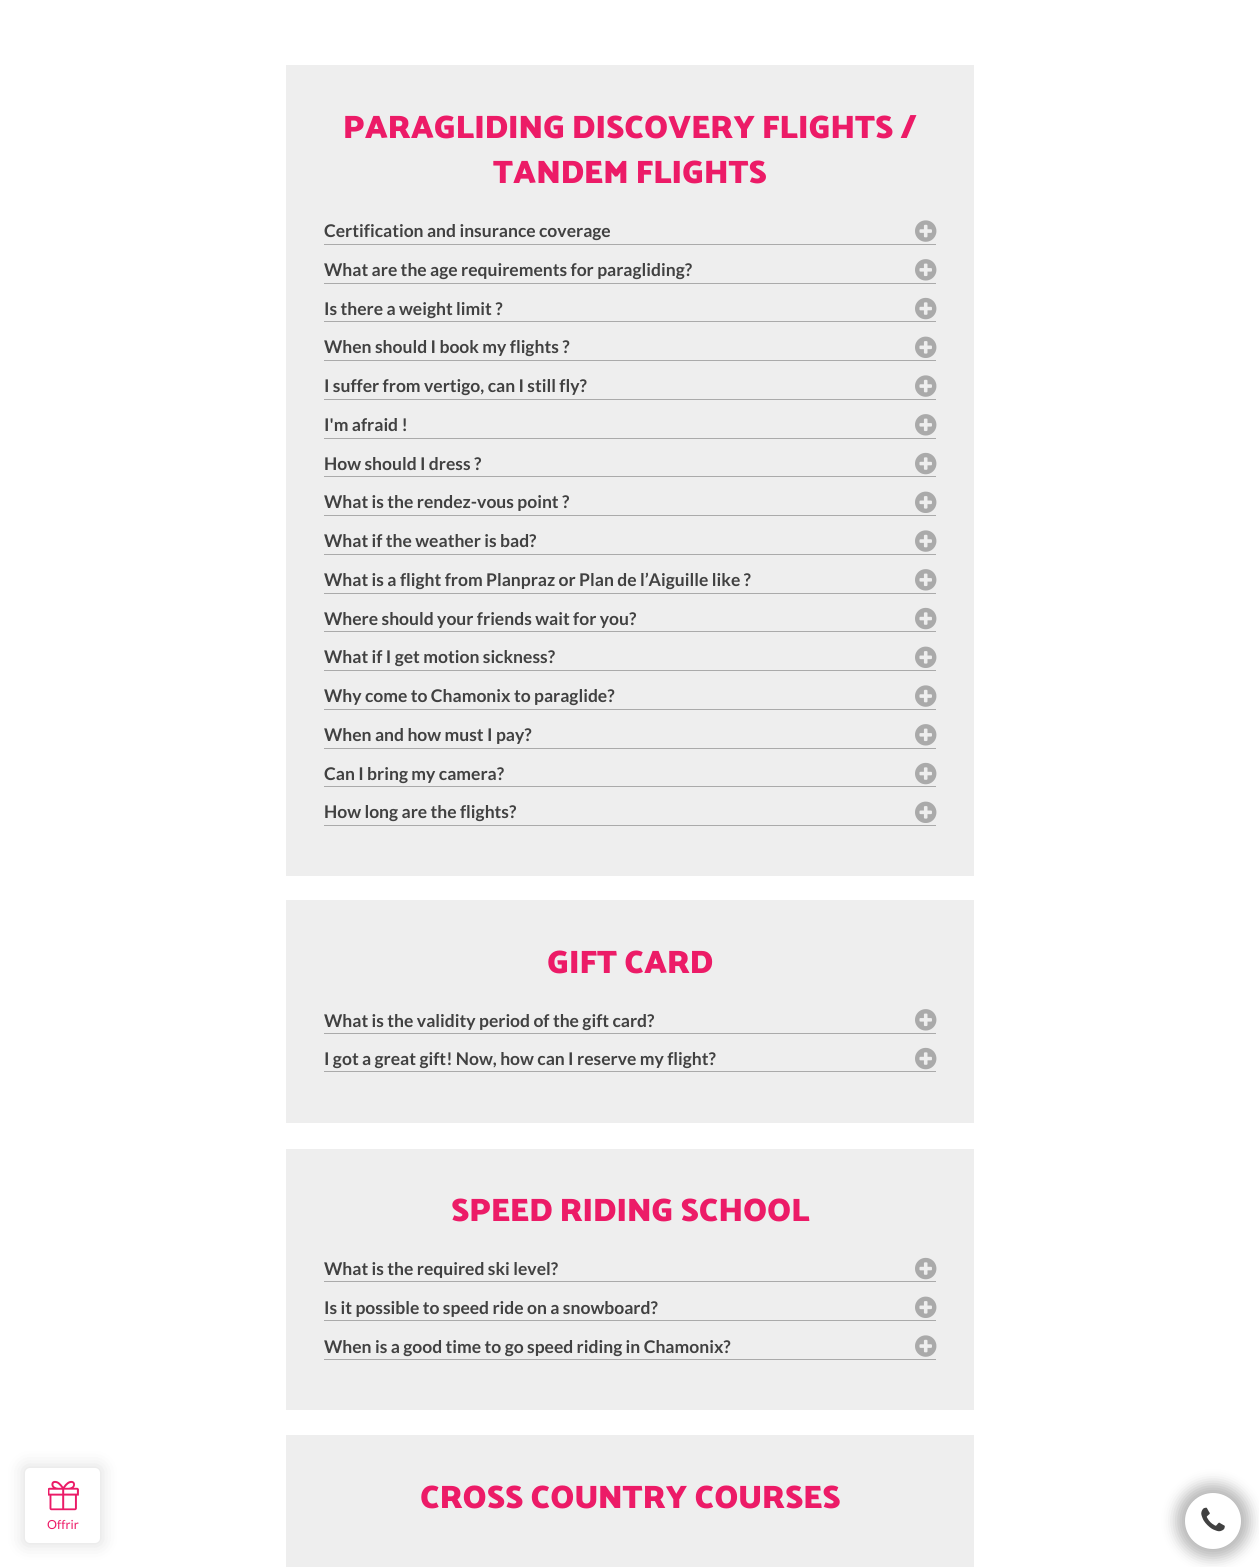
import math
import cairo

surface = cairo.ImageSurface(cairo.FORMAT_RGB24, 1259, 1567)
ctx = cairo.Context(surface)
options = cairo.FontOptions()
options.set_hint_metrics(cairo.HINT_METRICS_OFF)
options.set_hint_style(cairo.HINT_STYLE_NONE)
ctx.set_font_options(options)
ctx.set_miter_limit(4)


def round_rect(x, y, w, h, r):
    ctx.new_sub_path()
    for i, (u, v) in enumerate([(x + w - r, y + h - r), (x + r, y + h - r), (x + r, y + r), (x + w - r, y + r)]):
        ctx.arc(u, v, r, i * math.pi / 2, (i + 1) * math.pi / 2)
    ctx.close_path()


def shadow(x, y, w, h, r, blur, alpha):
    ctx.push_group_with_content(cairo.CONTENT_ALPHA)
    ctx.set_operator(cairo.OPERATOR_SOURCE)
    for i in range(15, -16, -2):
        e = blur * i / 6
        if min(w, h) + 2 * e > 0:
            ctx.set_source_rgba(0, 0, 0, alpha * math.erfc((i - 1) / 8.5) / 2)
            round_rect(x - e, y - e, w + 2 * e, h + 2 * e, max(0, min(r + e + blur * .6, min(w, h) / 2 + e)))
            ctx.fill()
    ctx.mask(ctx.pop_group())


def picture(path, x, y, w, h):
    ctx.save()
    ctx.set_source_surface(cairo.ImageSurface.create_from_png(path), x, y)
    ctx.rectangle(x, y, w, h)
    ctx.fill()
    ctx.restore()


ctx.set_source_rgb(1, 1, 1)
ctx.paint()
ctx.set_source_rgb(0, 0, 0)
shadow(25, 1468, 75, 75, 0, 9.5, 0.15)
ctx.set_source_rgb(1, 1, 1)
round_rect(25, 1468, 75, 75, 5)
ctx.fill()
picture("img1.png", 48, 1480, 31, 31)
ctx.select_font_face("Lato")
ctx.set_font_size(12.5)
ctx.set_source_rgb(0.922, 0.106, 0.404)
ctx.move_to(47, 1529)
ctx.show_text("Offrir")
ctx.set_source_rgb(0.933, 0.933, 0.933)
ctx.rectangle(286, 65, 688, 811)
ctx.fill()
ctx.select_font_face("Palanquin Dark", cairo.FONT_SLANT_NORMAL, cairo.FONT_WEIGHT_BOLD)
ctx.set_font_size(32.5)
ctx.set_source_rgb(0.922, 0.106, 0.404)
ctx.move_to(343, 138)
ctx.show_text("PARAGLIDING DISCOVERY FLIGHTS /")
ctx.move_to(493, 183)
ctx.show_text("TANDEM FLIGHTS")
ctx.set_source_rgb(0.667, 0.667, 0.667)
ctx.rectangle(324, 244, 612, 1)
ctx.fill()
ctx.select_font_face("Lato", cairo.FONT_SLANT_NORMAL, cairo.FONT_WEIGHT_BOLD)
ctx.set_font_size(17.5)
ctx.set_source_rgb(0.255, 0.255, 0.255)
ctx.move_to(324, 237)
ctx.show_text("Certification and insurance coverage")
picture("img2.png", 915, 220, 22, 22)
ctx.set_source_rgb(0.667, 0.667, 0.667)
ctx.rectangle(324, 283, 612, 1)
ctx.fill()
ctx.set_source_rgb(0.255, 0.255, 0.255)
ctx.move_to(324, 276)
ctx.show_text("What are the age requirements for paragliding?")
picture("img3.png", 915, 259, 22, 22)
ctx.set_source_rgb(0.667, 0.667, 0.667)
ctx.rectangle(324, 321, 612, 1)
ctx.fill()
ctx.set_source_rgb(0.255, 0.255, 0.255)
ctx.move_to(324, 315)
ctx.show_text("Is there a weight limit ?")
picture("img4.png", 915, 297, 22, 23)
ctx.set_source_rgb(0.667, 0.667, 0.667)
ctx.rectangle(324, 360, 612, 1)
ctx.fill()
ctx.set_source_rgb(0.255, 0.255, 0.255)
ctx.move_to(324, 353)
ctx.show_text("When should I book my flights ?")
picture("img5.png", 915, 336, 22, 22)
ctx.set_source_rgb(0.667, 0.667, 0.667)
ctx.rectangle(324, 399, 612, 1)
ctx.fill()
ctx.set_source_rgb(0.255, 0.255, 0.255)
ctx.move_to(324, 392)
ctx.show_text("I suffer from vertigo, can I still fly?")
picture("img2.png", 915, 375, 22, 22)
ctx.set_source_rgb(0.667, 0.667, 0.667)
ctx.rectangle(324, 438, 612, 1)
ctx.fill()
ctx.set_source_rgb(0.255, 0.255, 0.255)
ctx.move_to(324, 431)
ctx.show_text("I'm afraid !")
picture("img3.png", 915, 414, 22, 22)
ctx.set_source_rgb(0.667, 0.667, 0.667)
ctx.rectangle(324, 476, 612, 1)
ctx.fill()
ctx.set_source_rgb(0.255, 0.255, 0.255)
ctx.move_to(324, 470)
ctx.show_text("How should I dress ?")
picture("img4.png", 915, 452, 22, 23)
ctx.set_source_rgb(0.667, 0.667, 0.667)
ctx.rectangle(324, 515, 612, 1)
ctx.fill()
ctx.set_source_rgb(0.255, 0.255, 0.255)
ctx.move_to(324, 508)
ctx.show_text("What is the rendez-vous point ?")
picture("img5.png", 915, 491, 22, 22)
ctx.set_source_rgb(0.667, 0.667, 0.667)
ctx.rectangle(324, 554, 612, 1)
ctx.fill()
ctx.set_source_rgb(0.255, 0.255, 0.255)
ctx.move_to(324, 547)
ctx.show_text("What if the weather is bad?")
picture("img2.png", 915, 530, 22, 22)
ctx.set_source_rgb(0.667, 0.667, 0.667)
ctx.rectangle(324, 593, 612, 1)
ctx.fill()
ctx.set_source_rgb(0.255, 0.255, 0.255)
ctx.move_to(324, 586)
ctx.show_text("What is a flight from Planpraz or Plan de l’Aiguille like ?")
picture("img3.png", 915, 569, 22, 22)
ctx.set_source_rgb(0.667, 0.667, 0.667)
ctx.rectangle(324, 631, 612, 1)
ctx.fill()
ctx.set_source_rgb(0.255, 0.255, 0.255)
ctx.move_to(324, 625)
ctx.show_text("Where should your friends wait for you?")
picture("img4.png", 915, 607, 22, 23)
ctx.set_source_rgb(0.667, 0.667, 0.667)
ctx.rectangle(324, 670, 612, 1)
ctx.fill()
ctx.set_source_rgb(0.255, 0.255, 0.255)
ctx.move_to(324, 663)
ctx.show_text("What if I get motion sickness?")
picture("img5.png", 915, 646, 22, 22)
ctx.set_source_rgb(0.667, 0.667, 0.667)
ctx.rectangle(324, 709, 612, 1)
ctx.fill()
ctx.set_source_rgb(0.255, 0.255, 0.255)
ctx.move_to(324, 702)
ctx.show_text("Why come to Chamonix to paraglide?")
picture("img2.png", 915, 685, 22, 22)
ctx.set_source_rgb(0.667, 0.667, 0.667)
ctx.rectangle(324, 748, 612, 1)
ctx.fill()
ctx.set_source_rgb(0.255, 0.255, 0.255)
ctx.move_to(324, 741)
ctx.show_text("When and how must I pay?")
picture("img3.png", 915, 724, 22, 22)
ctx.set_source_rgb(0.667, 0.667, 0.667)
ctx.rectangle(324, 786, 612, 1)
ctx.fill()
ctx.set_source_rgb(0.255, 0.255, 0.255)
ctx.move_to(324, 780)
ctx.show_text("Can I bring my camera?")
picture("img4.png", 915, 762, 22, 23)
ctx.set_source_rgb(0.667, 0.667, 0.667)
ctx.rectangle(324, 825, 612, 1)
ctx.fill()
ctx.set_source_rgb(0.255, 0.255, 0.255)
ctx.move_to(324, 818)
ctx.show_text("How long are the flights?")
picture("img5.png", 915, 801, 22, 22)
ctx.set_source_rgb(0.933, 0.933, 0.933)
ctx.rectangle(286, 900, 688, 223)
ctx.fill()
ctx.select_font_face("Palanquin Dark", cairo.FONT_SLANT_NORMAL, cairo.FONT_WEIGHT_BOLD)
ctx.set_font_size(32.5)
ctx.set_source_rgb(0.922, 0.106, 0.404)
ctx.move_to(547, 973)
ctx.show_text("GIFT CARD")
ctx.set_source_rgb(0.667, 0.667, 0.667)
ctx.rectangle(324, 1033, 612, 1)
ctx.fill()
ctx.select_font_face("Lato", cairo.FONT_SLANT_NORMAL, cairo.FONT_WEIGHT_BOLD)
ctx.set_font_size(17.5)
ctx.set_source_rgb(0.255, 0.255, 0.255)
ctx.move_to(324, 1027)
ctx.show_text("What is the validity period of the gift card?")
picture("img3.png", 915, 1009, 22, 22)
ctx.set_source_rgb(0.667, 0.667, 0.667)
ctx.rectangle(324, 1071, 612, 1)
ctx.fill()
ctx.set_source_rgb(0.255, 0.255, 0.255)
ctx.move_to(324, 1065)
ctx.show_text("I got a great gift! Now, how can I reserve my flight?")
picture("img4.png", 915, 1047, 22, 23)
ctx.set_source_rgb(0.933, 0.933, 0.933)
ctx.rectangle(286, 1149, 688, 261)
ctx.fill()
ctx.select_font_face("Palanquin Dark", cairo.FONT_SLANT_NORMAL, cairo.FONT_WEIGHT_BOLD)
ctx.set_font_size(32.5)
ctx.set_source_rgb(0.922, 0.106, 0.404)
ctx.move_to(451, 1221)
ctx.show_text("SPEED RIDING SCHOOL")
ctx.set_source_rgb(0.667, 0.667, 0.667)
ctx.rectangle(324, 1281, 612, 1)
ctx.fill()
ctx.select_font_face("Lato", cairo.FONT_SLANT_NORMAL, cairo.FONT_WEIGHT_BOLD)
ctx.set_font_size(17.5)
ctx.set_source_rgb(0.255, 0.255, 0.255)
ctx.move_to(324, 1275)
ctx.show_text("What is the required ski level?")
picture("img4.png", 915, 1257, 22, 23)
ctx.set_source_rgb(0.667, 0.667, 0.667)
ctx.rectangle(324, 1320, 612, 1)
ctx.fill()
ctx.set_source_rgb(0.255, 0.255, 0.255)
ctx.move_to(324, 1314)
ctx.show_text("Is it possible to speed ride on a snowboard?")
picture("img5.png", 915, 1296, 22, 22)
ctx.set_source_rgb(0.667, 0.667, 0.667)
ctx.rectangle(324, 1359, 612, 1)
ctx.fill()
ctx.set_source_rgb(0.255, 0.255, 0.255)
ctx.move_to(324, 1353)
ctx.show_text("When is a good time to go speed riding in Chamonix?")
picture("img2.png", 915, 1335, 22, 22)
ctx.set_source_rgb(0.933, 0.933, 0.933)
ctx.rectangle(286, 1435, 688, 132)
ctx.fill()
ctx.select_font_face("Palanquin Dark", cairo.FONT_SLANT_NORMAL, cairo.FONT_WEIGHT_BOLD)
ctx.set_font_size(32.5)
ctx.set_source_rgb(0.922, 0.106, 0.404)
ctx.move_to(420, 1508)
ctx.show_text("CROSS COUNTRY COURSES")
ctx.set_source_rgb(0, 0, 0)
shadow(1176, 1484, 74, 74, 37, 7, 0.28)
ctx.set_source_rgb(1, 1, 1)
ctx.arc(1213, 1521, 28, 0, 2 * math.pi)
ctx.fill()
picture("img6.png", 1201, 1507, 24, 25)
surface.write_to_png("page.png")
